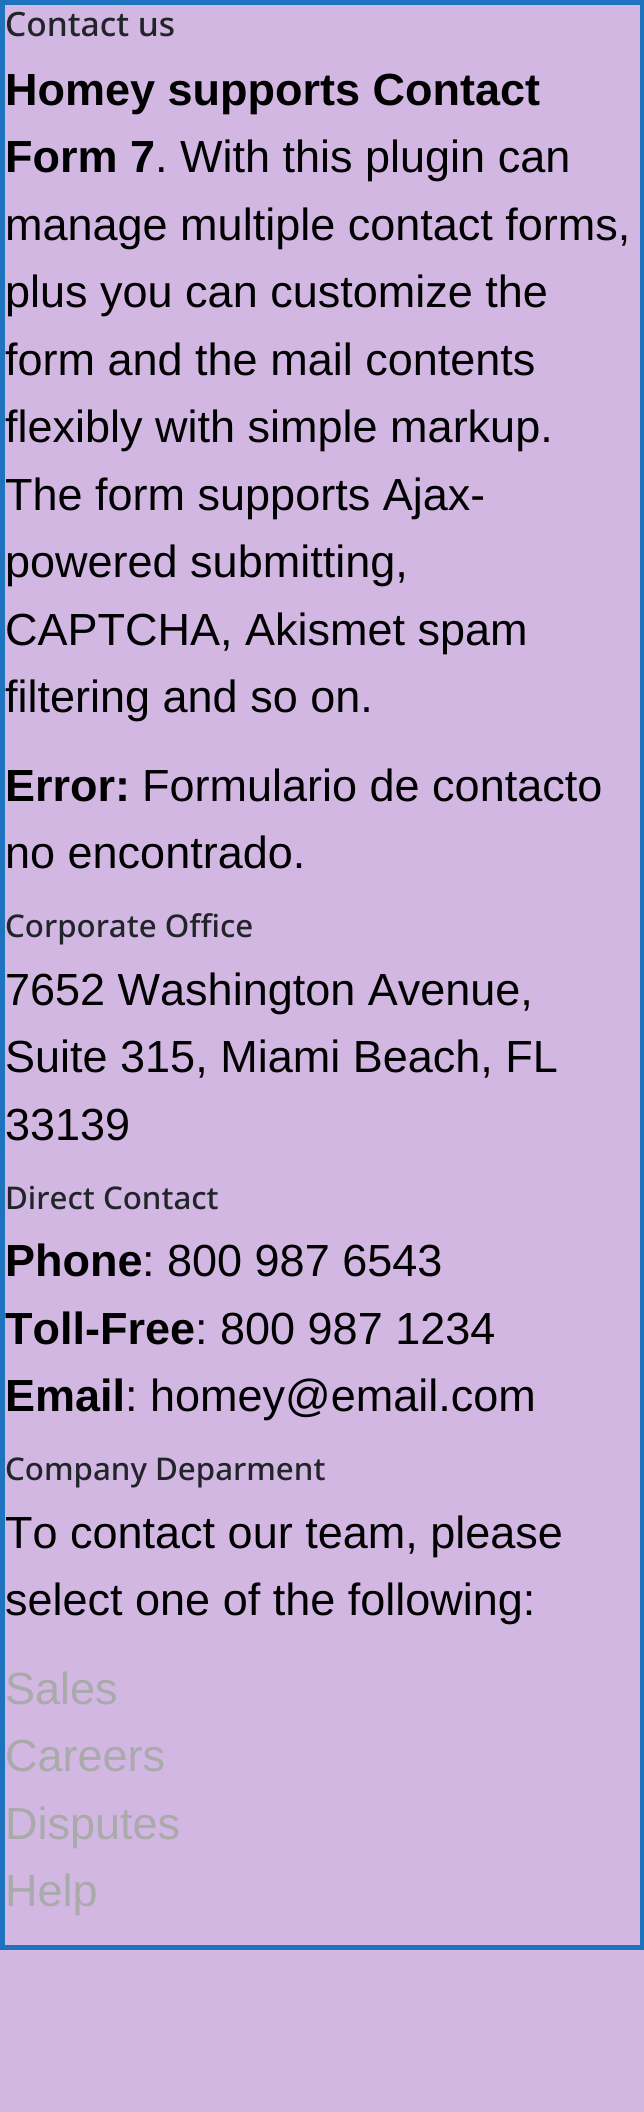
import math
import cairo

surface = cairo.ImageSurface(cairo.FORMAT_RGB24, 644, 2112)
ctx = cairo.Context(surface)
options = cairo.FontOptions()
options.set_hint_metrics(cairo.HINT_METRICS_OFF)
options.set_hint_style(cairo.HINT_STYLE_NONE)
ctx.set_font_options(options)
ctx.set_miter_limit(4)


ctx.set_source_rgb(0.82, 0.718, 0.886)
ctx.paint()
ctx.rectangle(2.5, 2.5, 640, 1945)
ctx.set_source_rgb(0.118, 0.451, 0.745)
ctx.set_line_width(5)
ctx.stroke()
ctx.select_font_face("Noto Sans Medium")
ctx.set_font_size(33.5)
ctx.set_source_rgb(0.129, 0.145, 0.161)
ctx.move_to(5, 36)
ctx.show_text("Contact us")
ctx.select_font_face("Liberation Sans", cairo.FONT_SLANT_NORMAL, cairo.FONT_WEIGHT_BOLD)
ctx.set_font_size(45)
ctx.set_source_rgb(0, 0, 0)
ctx.move_to(5, 105)
ctx.show_text("Homey supports Contact")
ctx.move_to(5, 172)
ctx.show_text("Form 7")
ctx.select_font_face("Liberation Sans")
ctx.move_to(155, 172)
ctx.show_text(". With this plugin can")
ctx.move_to(5, 240)
ctx.show_text("manage multiple contact forms,")
ctx.move_to(5, 307)
ctx.show_text("plus you can customize the")
ctx.move_to(5, 375)
ctx.show_text("form and the mail contents")
ctx.move_to(5, 442)
ctx.show_text("flexibly with simple markup.")
ctx.move_to(5, 510)
ctx.show_text("The form supports Ajax-")
ctx.move_to(5, 577)
ctx.show_text("powered submitting,")
ctx.move_to(5, 645)
ctx.show_text("CAPTCHA, Akismet spam")
ctx.move_to(5, 712)
ctx.show_text("filtering and so on.")
ctx.select_font_face("Liberation Sans", cairo.FONT_SLANT_NORMAL, cairo.FONT_WEIGHT_BOLD)
ctx.move_to(5, 801)
ctx.show_text("Error:")
ctx.select_font_face("Liberation Sans")
ctx.move_to(142, 801)
ctx.show_text("Formulario de contacto")
ctx.move_to(5, 868)
ctx.show_text("no encontrado.")
ctx.select_font_face("Noto Sans Medium")
ctx.set_font_size(31.25)
ctx.set_source_rgb(0.129, 0.145, 0.161)
ctx.move_to(5, 937)
ctx.show_text("Corporate Office")
ctx.select_font_face("Liberation Sans")
ctx.set_font_size(45)
ctx.set_source_rgb(0, 0, 0)
ctx.move_to(5, 1005)
ctx.show_text("7652 Washington Avenue,")
ctx.move_to(5, 1072)
ctx.show_text("Suite 315, Miami Beach, FL")
ctx.move_to(5, 1140)
ctx.show_text("33139")
ctx.select_font_face("Noto Sans Medium")
ctx.set_font_size(31.25)
ctx.set_source_rgb(0.129, 0.145, 0.161)
ctx.move_to(5, 1209)
ctx.show_text("Direct Contact")
ctx.select_font_face("Liberation Sans", cairo.FONT_SLANT_NORMAL, cairo.FONT_WEIGHT_BOLD)
ctx.set_font_size(45)
ctx.set_source_rgb(0, 0, 0)
ctx.move_to(5, 1276)
ctx.show_text("Phone")
ctx.select_font_face("Liberation Sans")
ctx.move_to(142, 1276)
ctx.show_text(": 800 987 6543")
ctx.select_font_face("Liberation Sans", cairo.FONT_SLANT_NORMAL, cairo.FONT_WEIGHT_BOLD)
ctx.move_to(5, 1344)
ctx.show_text("Toll-Free")
ctx.select_font_face("Liberation Sans")
ctx.move_to(195, 1344)
ctx.show_text(": 800 987 1234")
ctx.select_font_face("Liberation Sans", cairo.FONT_SLANT_NORMAL, cairo.FONT_WEIGHT_BOLD)
ctx.move_to(5, 1411)
ctx.show_text("Email")
ctx.select_font_face("Liberation Sans")
ctx.move_to(125, 1411)
ctx.show_text(": homey@email.com")
ctx.select_font_face("Noto Sans Medium")
ctx.set_font_size(31.25)
ctx.set_source_rgb(0.129, 0.145, 0.161)
ctx.move_to(5, 1480)
ctx.show_text("Company Deparment")
ctx.select_font_face("Liberation Sans")
ctx.set_font_size(45)
ctx.set_source_rgb(0, 0, 0)
ctx.move_to(5, 1548)
ctx.show_text("To contact our team, please")
ctx.move_to(5, 1615)
ctx.show_text("select one of the following:")
ctx.set_source_rgb(0.667, 0.667, 0.667)
ctx.move_to(5, 1704)
ctx.show_text("Sales")
ctx.move_to(5, 1771)
ctx.show_text("Careers")
ctx.move_to(5, 1839)
ctx.show_text("Disputes")
ctx.move_to(5, 1906)
ctx.show_text("Help")
surface.write_to_png("page.png")
